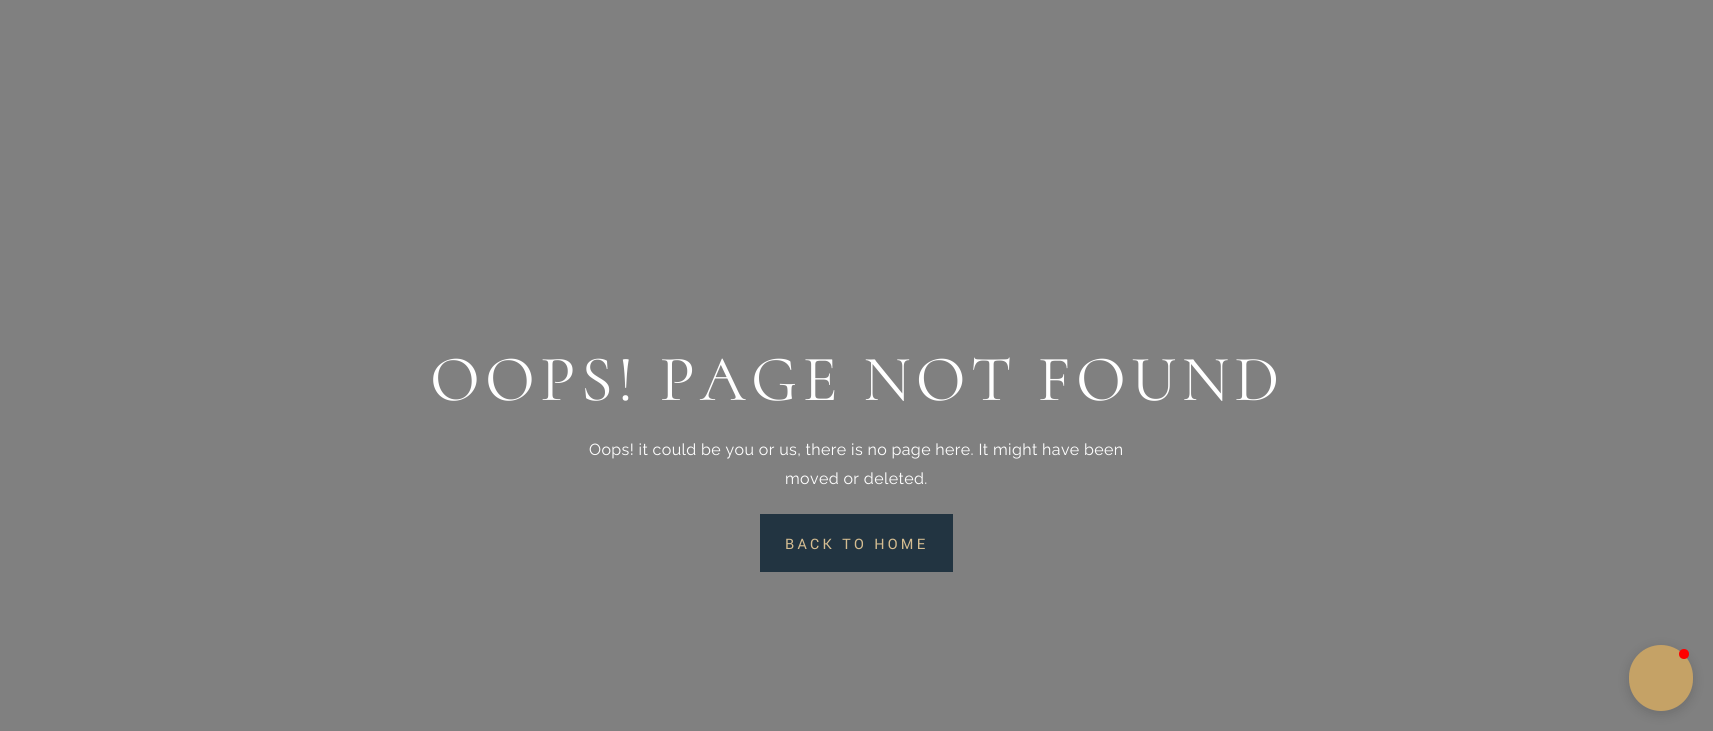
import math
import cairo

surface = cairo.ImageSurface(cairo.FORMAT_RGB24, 1713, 731)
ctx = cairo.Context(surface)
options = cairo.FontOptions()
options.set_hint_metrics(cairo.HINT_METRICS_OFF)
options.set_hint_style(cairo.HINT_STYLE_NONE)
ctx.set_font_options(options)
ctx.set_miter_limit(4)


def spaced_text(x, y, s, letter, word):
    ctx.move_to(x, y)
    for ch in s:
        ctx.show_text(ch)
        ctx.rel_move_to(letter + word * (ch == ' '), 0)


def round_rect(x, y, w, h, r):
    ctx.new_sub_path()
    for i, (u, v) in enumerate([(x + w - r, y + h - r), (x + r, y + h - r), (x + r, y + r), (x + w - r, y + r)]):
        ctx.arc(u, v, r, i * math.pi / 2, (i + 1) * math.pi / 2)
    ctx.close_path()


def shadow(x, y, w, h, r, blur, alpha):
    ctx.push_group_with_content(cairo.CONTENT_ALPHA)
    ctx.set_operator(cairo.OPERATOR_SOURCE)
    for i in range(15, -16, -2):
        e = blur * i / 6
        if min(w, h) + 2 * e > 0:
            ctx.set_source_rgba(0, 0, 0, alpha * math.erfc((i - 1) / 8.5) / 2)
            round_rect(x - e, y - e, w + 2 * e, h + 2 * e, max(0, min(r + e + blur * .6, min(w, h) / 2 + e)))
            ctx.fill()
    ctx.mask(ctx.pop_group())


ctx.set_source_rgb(0.502, 0.502, 0.502)
ctx.paint()
ctx.select_font_face("Cormorant")
ctx.set_font_size(65)
ctx.set_source_rgb(1, 1, 1)
spaced_text(430, 400, "OOPS! PAGE NOT FOUND", 5.25, 0)
ctx.select_font_face("Raleway")
ctx.set_font_size(16)
spaced_text(589, 455, "Oops! it could be you or us, there is no page here. It might have been", 0.38, 0)
spaced_text(785, 484, "moved or deleted.", 0.38, 0)
ctx.set_source_rgb(0.133, 0.204, 0.255)
ctx.rectangle(760, 514, 193, 58)
ctx.fill()
ctx.select_font_face("Yantramanav")
ctx.set_source_rgb(0.835, 0.741, 0.569)
spaced_text(785, 549, "BACK TO HOME", 3.25, 0)
ctx.set_source_rgb(0, 0, 0)
shadow(1629, 648, 64, 66, 32, 6, 0.15)
ctx.set_source_rgb(0.773, 0.635, 0.4)
round_rect(1629, 645, 64, 66, 32)
ctx.fill()
ctx.set_source_rgb(1, 0, 0)
ctx.arc(1684, 654, 5, 0, 2 * math.pi)
ctx.fill()
surface.write_to_png("page.png")
